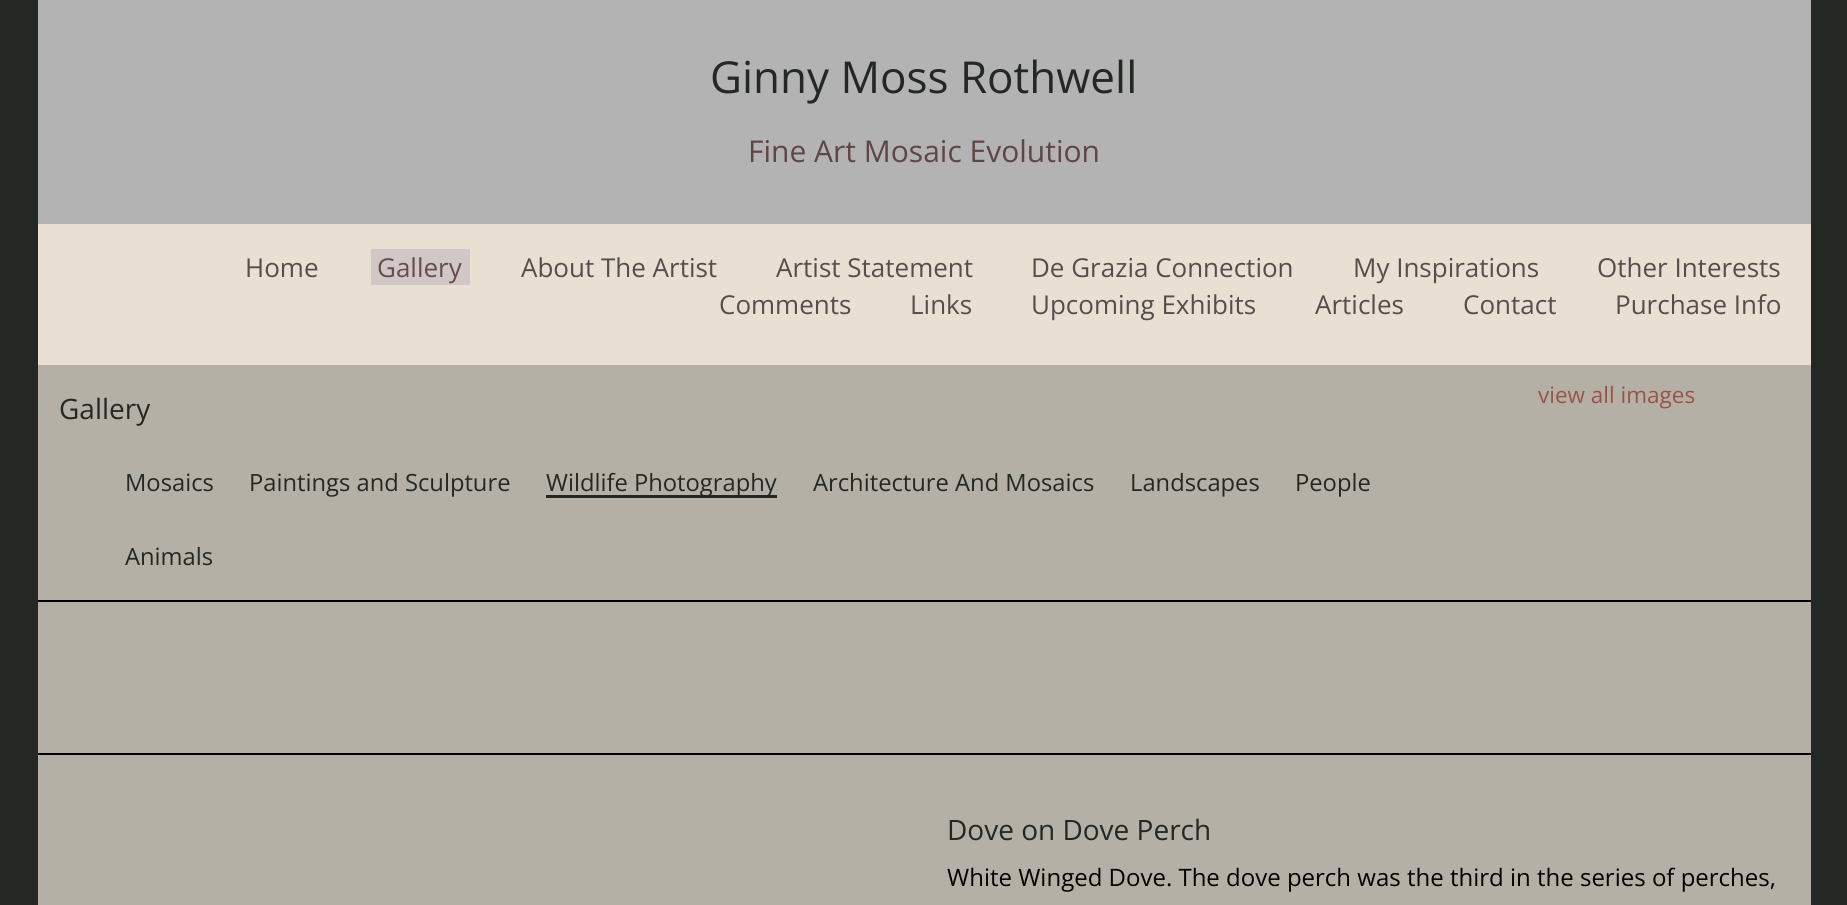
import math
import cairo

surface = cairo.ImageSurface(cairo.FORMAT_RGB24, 1847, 905)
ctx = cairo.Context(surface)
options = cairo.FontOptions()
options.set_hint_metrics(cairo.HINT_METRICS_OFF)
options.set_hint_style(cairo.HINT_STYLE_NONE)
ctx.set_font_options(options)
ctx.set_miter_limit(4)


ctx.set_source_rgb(0.141, 0.157, 0.141)
ctx.paint()
ctx.set_source_rgb(0.702, 0.702, 0.702)
ctx.rectangle(38, 0, 1773, 224)
ctx.fill()
ctx.select_font_face("Open Sans")
ctx.set_font_size(44)
ctx.set_source_rgb(0.141, 0.157, 0.141)
ctx.move_to(710, 93)
ctx.show_text("Ginny Moss Rothwell")
ctx.set_font_size(30)
ctx.set_source_rgb(0.373, 0.271, 0.271)
ctx.move_to(748, 162)
ctx.show_text("Fine Art Mosaic Evolution")
ctx.set_source_rgb(0.914, 0.878, 0.827)
ctx.rectangle(38, 224, 1773, 141)
ctx.fill()
ctx.set_font_size(26)
ctx.set_source_rgb(0.337, 0.302, 0.302)
ctx.move_to(245, 277)
ctx.show_text("Home")
ctx.set_source_rgb(0.82, 0.78, 0.78)
ctx.rectangle(371, 249, 99, 36)
ctx.fill()
ctx.set_source_rgb(0.404, 0.298, 0.298)
ctx.move_to(377, 277)
ctx.show_text("Gallery")
ctx.set_source_rgb(0.337, 0.302, 0.302)
ctx.move_to(521, 277)
ctx.show_text("About The Artist")
ctx.move_to(776, 277)
ctx.show_text("Artist Statement")
ctx.move_to(1031, 277)
ctx.show_text("De Grazia Connection")
ctx.move_to(1353, 277)
ctx.show_text("My Inspirations")
ctx.move_to(1597, 277)
ctx.show_text("Other Interests")
ctx.move_to(719, 314)
ctx.show_text("Comments")
ctx.move_to(910, 314)
ctx.show_text("Links")
ctx.move_to(1031, 314)
ctx.show_text("Upcoming Exhibits")
ctx.move_to(1315, 314)
ctx.show_text("Articles")
ctx.move_to(1463, 314)
ctx.show_text("Contact")
ctx.move_to(1615, 314)
ctx.show_text("Purchase Info")
ctx.set_source_rgb(0.71, 0.69, 0.651)
ctx.rectangle(38, 365, 1773, 540)
ctx.fill()
ctx.set_font_size(28)
ctx.set_source_rgb(0.141, 0.157, 0.141)
ctx.move_to(59, 419)
ctx.show_text("Gallery")
ctx.set_font_size(23.75)
ctx.move_to(125, 491)
ctx.show_text("Mosaics")
ctx.move_to(249, 491)
ctx.show_text("Paintings and Sculpture")
ctx.rectangle(546, 495, 231, 3)
ctx.fill()
ctx.move_to(546, 491)
ctx.show_text("Wildlife Photography")
ctx.move_to(813, 491)
ctx.show_text("Architecture And Mosaics")
ctx.move_to(1130, 491)
ctx.show_text("Landscapes")
ctx.move_to(1295, 491)
ctx.show_text("People")
ctx.move_to(125, 565)
ctx.show_text("Animals")
ctx.set_font_size(22.5)
ctx.set_source_rgb(0.612, 0.322, 0.286)
ctx.move_to(1538, 403)
ctx.show_text("view all images")
ctx.set_source_rgb(0, 0, 0)
ctx.rectangle(38, 600, 1773, 2)
ctx.fill()
ctx.rectangle(38, 753, 1773, 2)
ctx.fill()
ctx.set_font_size(28)
ctx.set_source_rgb(0.141, 0.157, 0.141)
ctx.move_to(947, 840)
ctx.show_text("Dove on Dove Perch")
ctx.set_font_size(24)
ctx.set_source_rgb(0, 0, 0)
ctx.move_to(947, 886)
ctx.show_text("White Winged Dove. The dove perch was the third in the series of perches,")
surface.write_to_png("page.png")
